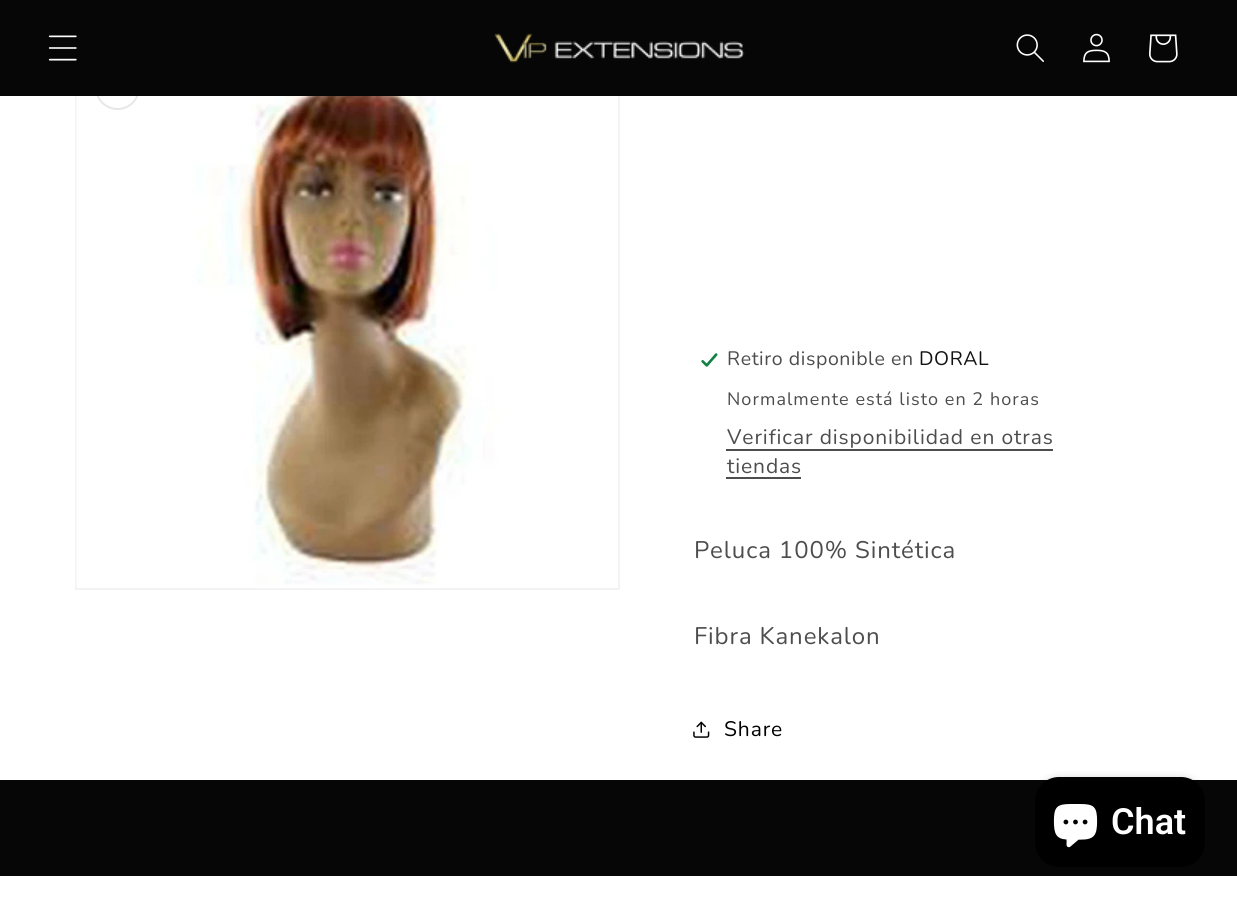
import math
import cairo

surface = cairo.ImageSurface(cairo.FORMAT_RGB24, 1237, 898)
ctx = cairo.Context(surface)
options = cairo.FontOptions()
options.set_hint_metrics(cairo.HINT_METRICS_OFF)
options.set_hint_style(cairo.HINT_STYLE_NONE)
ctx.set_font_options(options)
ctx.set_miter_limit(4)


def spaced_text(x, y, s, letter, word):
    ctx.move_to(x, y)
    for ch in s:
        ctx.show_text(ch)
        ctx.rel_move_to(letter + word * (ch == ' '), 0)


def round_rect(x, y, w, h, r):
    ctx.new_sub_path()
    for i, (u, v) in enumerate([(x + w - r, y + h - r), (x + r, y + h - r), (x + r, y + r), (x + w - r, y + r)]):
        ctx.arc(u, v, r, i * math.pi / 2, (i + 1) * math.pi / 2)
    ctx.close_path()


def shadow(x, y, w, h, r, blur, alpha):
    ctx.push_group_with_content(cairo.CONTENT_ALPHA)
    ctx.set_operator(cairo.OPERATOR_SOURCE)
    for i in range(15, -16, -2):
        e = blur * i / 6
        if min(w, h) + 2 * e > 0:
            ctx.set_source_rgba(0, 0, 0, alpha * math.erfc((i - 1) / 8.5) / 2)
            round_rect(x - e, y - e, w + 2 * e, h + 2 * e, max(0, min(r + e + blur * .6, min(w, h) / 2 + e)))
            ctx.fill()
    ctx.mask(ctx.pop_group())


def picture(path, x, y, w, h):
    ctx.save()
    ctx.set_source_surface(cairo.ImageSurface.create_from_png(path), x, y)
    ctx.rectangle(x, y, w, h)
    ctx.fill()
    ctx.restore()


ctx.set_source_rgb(0.024, 0.024, 0.024)
ctx.paint()
ctx.set_source_rgb(1, 1, 1)
ctx.rectangle(0, 96, 1237, 684)
ctx.fill()
ctx.rectangle(76, 46, 543, 543)
ctx.set_source_rgb(0.953, 0.953, 0.953)
ctx.stroke()
picture("img6.png", 76, 96, 542, 491)
ctx.arc(117.5, 87.5, 21.5, 0, 2 * math.pi)
ctx.set_source_rgb(0.906, 0.906, 0.906)
ctx.stroke()
ctx.set_source_rgb(0.024, 0.024, 0.024)
ctx.rectangle(75, 45, 545, 51)
ctx.fill()
picture("img1.png", 48, 35, 29, 26)
picture("img2.png", 494, 33, 251, 30)
picture("img3.png", 1016, 34, 28, 28)
picture("img4.png", 1083, 33, 27, 30)
picture("img5.png", 1149, 34, 29, 29)
picture("img7.png", 700, 353, 19, 14)
ctx.select_font_face("Nunito")
ctx.set_font_size(19.5)
ctx.set_source_rgb(0.302, 0.302, 0.302)
spaced_text(727, 365, "Retiro disponible en", 0.6, 0)
ctx.set_source_rgb(0.071, 0.071, 0.071)
spaced_text(919, 365, "DORAL", 0.6, 0)
ctx.set_font_size(18)
ctx.set_source_rgb(0.302, 0.302, 0.302)
spaced_text(727, 405, "Normalmente está listo en 2 horas", 1.05, 0)
ctx.set_font_size(21)
spaced_text(727, 444, "Verificar disponibilidad en otras", 0.9, 0)
ctx.rectangle(726, 449, 327, 2)
ctx.fill()
spaced_text(727, 473, "tiendas", 0.9, 0)
ctx.rectangle(726, 477, 75, 2)
ctx.fill()
ctx.set_font_size(24)
spaced_text(694, 558, "Peluca 100% Sintética", 0.9, 0)
spaced_text(694, 644, "Fibra Kanekalon", 0.9, 0)
picture("img8.png", 693, 721, 17, 17)
ctx.set_font_size(21)
ctx.set_source_rgb(0, 0, 0)
spaced_text(724, 736, "Share", 0.9, 0)
ctx.set_source_rgb(1, 1, 1)
ctx.rectangle(0, 876, 1237, 22)
ctx.fill()
ctx.set_source_rgb(0, 0, 0)
shadow(1035, 777, 170, 90, 24, 4, 0.15)
ctx.set_source_rgb(0, 0, 0)
round_rect(1035, 777, 170, 90, 24)
ctx.fill()
picture("img9.png", 1053, 804, 45, 44)
ctx.select_font_face("Roboto SemiBold")
ctx.set_font_size(36)
ctx.set_source_rgb(1, 1, 1)
ctx.move_to(1111, 834)
ctx.show_text("Chat")
surface.write_to_png("page.png")
